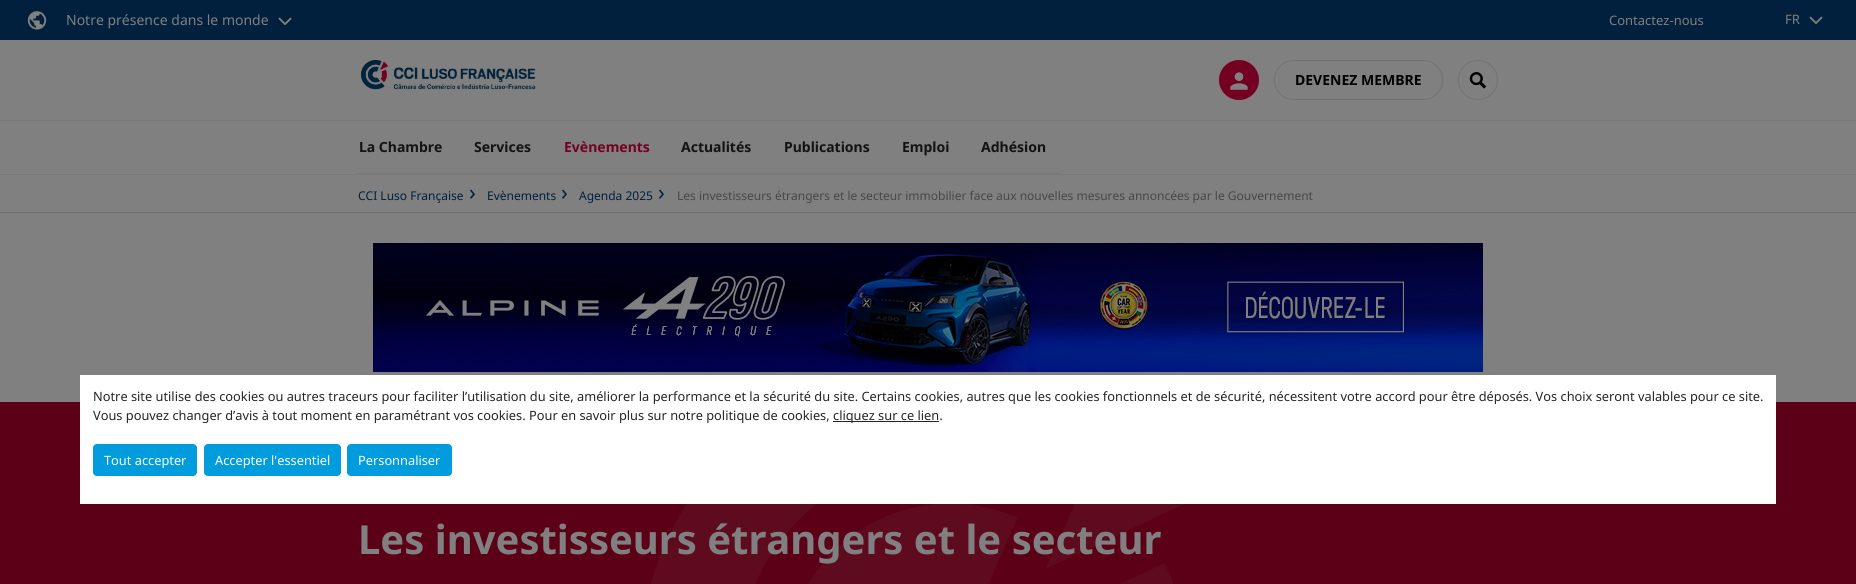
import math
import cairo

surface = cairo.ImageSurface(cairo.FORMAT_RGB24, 1856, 584)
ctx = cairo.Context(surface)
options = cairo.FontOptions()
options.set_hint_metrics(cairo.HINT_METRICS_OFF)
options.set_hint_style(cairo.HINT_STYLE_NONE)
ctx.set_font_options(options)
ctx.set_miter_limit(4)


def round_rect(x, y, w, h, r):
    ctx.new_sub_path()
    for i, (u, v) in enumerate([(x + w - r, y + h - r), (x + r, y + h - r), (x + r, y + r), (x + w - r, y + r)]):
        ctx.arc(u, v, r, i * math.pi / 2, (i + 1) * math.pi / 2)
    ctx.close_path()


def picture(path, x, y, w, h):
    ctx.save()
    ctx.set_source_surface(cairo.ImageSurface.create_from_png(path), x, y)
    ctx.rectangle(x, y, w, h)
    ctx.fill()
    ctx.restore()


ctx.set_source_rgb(0.502, 0.502, 0.502)
ctx.paint()
ctx.set_source_rgb(0.475, 0.475, 0.475)
ctx.rectangle(0, 174, 1856, 1)
ctx.fill()
ctx.set_source_rgb(0, 0.125, 0.239)
ctx.rectangle(0, 0, 1856, 40)
ctx.fill()
picture("img1.png", 27, 11, 20, 19)
ctx.select_font_face("Noto Sans")
ctx.set_font_size(14)
ctx.set_source_rgb(0.502, 0.502, 0.502)
ctx.move_to(66, 25)
ctx.show_text("Notre présence dans le monde")
picture("img2.png", 278, 17, 14, 8)
ctx.set_font_size(13)
ctx.move_to(1609, 25)
ctx.show_text("Contactez-nous")
ctx.move_to(1785, 24)
ctx.show_text("FR")
picture("img2.png", 1809, 16, 14, 8)
ctx.set_source_rgb(0.475, 0.475, 0.475)
ctx.rectangle(0, 120, 1856, 1)
ctx.fill()
picture("img3.png", 361, 59, 175, 31)
ctx.set_source_rgb(0.451, 0, 0.137)
ctx.arc(1239, 80, 20, 0, 2 * math.pi)
ctx.fill()
picture("img4.png", 1230, 72, 18, 18)
round_rect(1274.5, 60.5, 168, 39, 19.5)
ctx.set_source_rgb(0.447, 0.447, 0.447)
ctx.set_line_width(1)
ctx.stroke()
ctx.select_font_face("Noto Sans", cairo.FONT_SLANT_NORMAL, cairo.FONT_WEIGHT_BOLD)
ctx.set_font_size(14)
ctx.set_source_rgb(0, 0, 0)
ctx.move_to(1295, 85)
ctx.show_text("DEVENEZ MEMBRE")
ctx.new_path()
ctx.arc(1478, 80, 19.5, 0, 2 * math.pi)
ctx.set_source_rgb(0.447, 0.447, 0.447)
ctx.stroke()
picture("img5.png", 1469, 72, 18, 17)
ctx.set_source_rgb(0.475, 0.475, 0.475)
ctx.rectangle(358, 173, 704, 1)
ctx.fill()
ctx.set_source_rgb(0.075, 0.075, 0.075)
ctx.move_to(359, 152)
ctx.show_text("La Chambre")
ctx.move_to(474, 152)
ctx.show_text("Services")
ctx.set_source_rgb(0.451, 0, 0.137)
ctx.move_to(564, 152)
ctx.show_text("Evènements")
ctx.set_source_rgb(0.075, 0.075, 0.075)
ctx.move_to(681, 152)
ctx.show_text("Actualités")
ctx.move_to(784, 152)
ctx.show_text("Publications")
ctx.move_to(902, 152)
ctx.show_text("Emploi")
ctx.move_to(981, 152)
ctx.show_text("Adhésion")
ctx.set_source_rgb(0.447, 0.447, 0.447)
ctx.rectangle(0, 212, 1856, 1)
ctx.fill()
ctx.select_font_face("Noto Sans")
ctx.set_font_size(12)
ctx.set_source_rgb(0, 0.125, 0.239)
ctx.move_to(358, 200)
ctx.show_text("CCI Luso Française")
ctx.set_font_size(22)
ctx.move_to(469, 200)
ctx.show_text("›")
ctx.set_font_size(12)
ctx.move_to(487, 200)
ctx.show_text("Evènements")
ctx.set_font_size(22)
ctx.move_to(561, 200)
ctx.show_text("›")
ctx.set_font_size(12)
ctx.move_to(579, 200)
ctx.show_text("Agenda 2025")
ctx.set_font_size(22)
ctx.move_to(658, 200)
ctx.show_text("›")
ctx.set_font_size(12)
ctx.set_source_rgb(0.278, 0.278, 0.278)
ctx.move_to(677, 200)
ctx.show_text("Les investisseurs étrangers et le secteur immobilier face aux nouvelles mesures annoncées par le Gouvernement")
picture("img6.png", 373, 243, 1110, 129)
ctx.set_source_rgb(0.357, 0, 0.09)
ctx.rectangle(0, 402, 1856, 182)
ctx.fill()
picture("img7.png", 651, 504, 533, 80)
ctx.select_font_face("Noto Sans", cairo.FONT_SLANT_NORMAL, cairo.FONT_WEIGHT_BOLD)
ctx.set_font_size(40)
ctx.set_source_rgb(0.502, 0.502, 0.502)
ctx.move_to(358, 554)
ctx.show_text("Les investisseurs étrangers et le secteur")
ctx.set_source_rgb(1, 1, 1)
ctx.rectangle(80, 375, 1696, 129)
ctx.fill()
ctx.select_font_face("Noto Sans")
ctx.set_font_size(12.8)
ctx.set_source_rgb(0.145, 0.145, 0.145)
ctx.move_to(93, 401)
ctx.show_text("Notre site utilise des cookies ou autres traceurs pour faciliter l’utilisation du site, améliorer la performance et la sécurité du site. Certains cookies, autres que les cookies fonctionnels et de sécurité, nécessitent votre accord pour être déposés. Vos choix seront valables pour ce site.")
ctx.move_to(93, 420)
ctx.show_text("Vous pouvez changer d’avis à tout moment en paramétrant vos cookies. Pour en savoir plus sur notre politique de cookies,")
ctx.rectangle(833, 421, 106, 1)
ctx.fill()
ctx.move_to(833, 420)
ctx.show_text("cliquez sur ce lien.")
ctx.set_source_rgb(0, 0.612, 0.871)
round_rect(93, 444, 104, 32, 4)
ctx.fill()
ctx.set_source_rgb(1, 1, 1)
ctx.move_to(104, 465)
ctx.show_text("Tout accepter")
ctx.set_source_rgb(0, 0.612, 0.871)
round_rect(204, 444, 137, 32, 4)
ctx.fill()
ctx.set_source_rgb(1, 1, 1)
ctx.move_to(215, 465)
ctx.show_text("Accepter l'essentiel")
ctx.set_source_rgb(0, 0.612, 0.871)
round_rect(347, 444, 105, 32, 4)
ctx.fill()
ctx.set_source_rgb(1, 1, 1)
ctx.move_to(358, 465)
ctx.show_text("Personnaliser")
surface.write_to_png("page.png")
